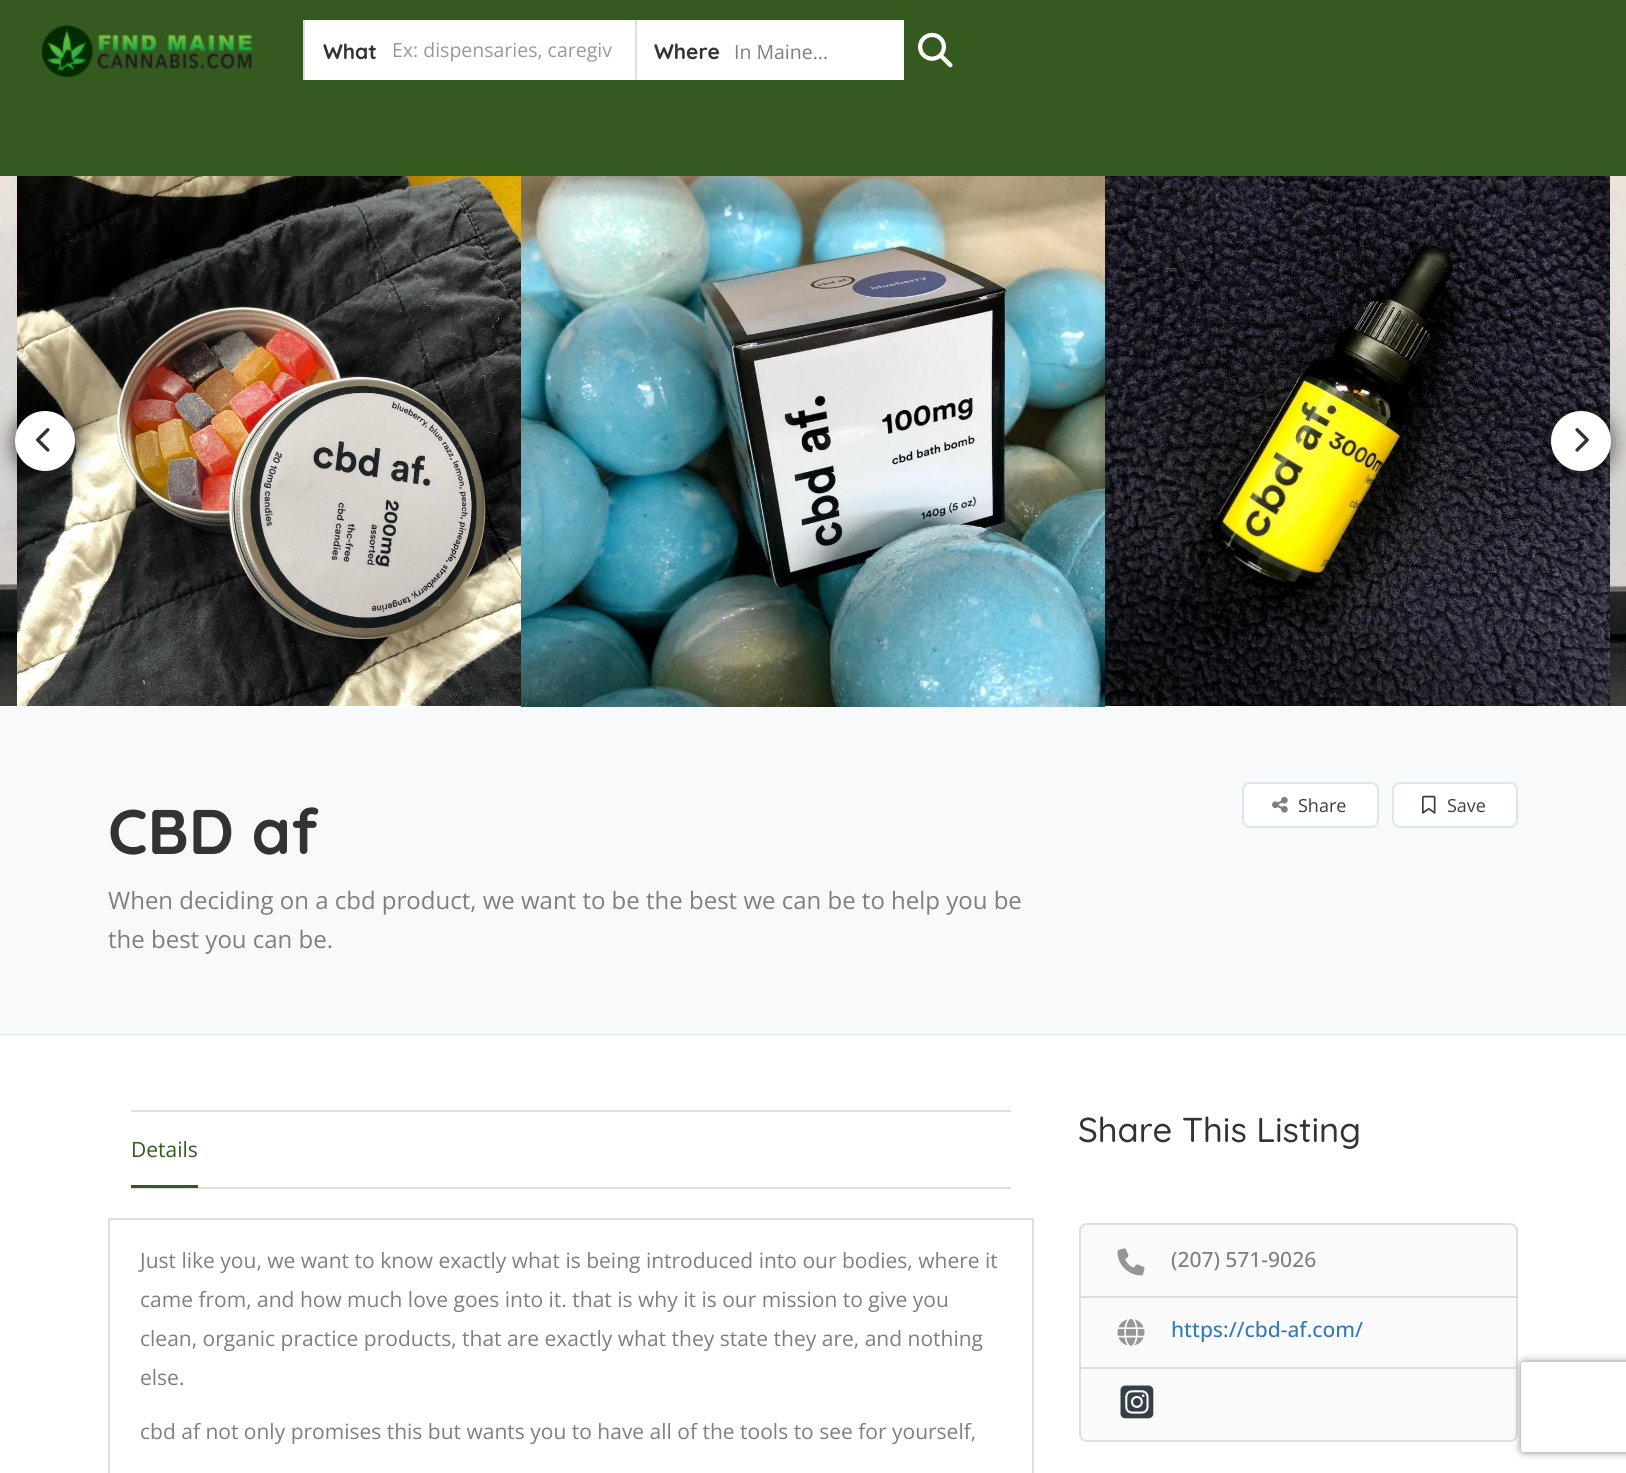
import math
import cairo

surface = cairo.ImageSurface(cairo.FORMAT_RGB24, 1626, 1473)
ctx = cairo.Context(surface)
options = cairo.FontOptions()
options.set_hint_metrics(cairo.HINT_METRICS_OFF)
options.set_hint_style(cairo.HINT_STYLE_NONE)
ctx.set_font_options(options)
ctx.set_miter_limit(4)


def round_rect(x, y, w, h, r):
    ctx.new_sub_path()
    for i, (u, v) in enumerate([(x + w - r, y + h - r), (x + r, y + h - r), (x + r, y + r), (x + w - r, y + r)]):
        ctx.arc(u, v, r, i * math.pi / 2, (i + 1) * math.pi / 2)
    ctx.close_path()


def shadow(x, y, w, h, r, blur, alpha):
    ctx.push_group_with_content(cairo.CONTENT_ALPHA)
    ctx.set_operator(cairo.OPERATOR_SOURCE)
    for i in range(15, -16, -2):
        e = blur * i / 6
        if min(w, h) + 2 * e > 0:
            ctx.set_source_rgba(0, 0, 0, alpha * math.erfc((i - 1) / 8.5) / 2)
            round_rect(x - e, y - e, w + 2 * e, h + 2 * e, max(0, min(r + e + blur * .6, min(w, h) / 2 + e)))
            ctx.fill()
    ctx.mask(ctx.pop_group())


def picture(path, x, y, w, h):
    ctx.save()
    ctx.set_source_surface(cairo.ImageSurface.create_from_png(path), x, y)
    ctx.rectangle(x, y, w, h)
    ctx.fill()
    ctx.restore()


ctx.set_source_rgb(0.969, 0.976, 0.98)
ctx.paint()
ctx.set_source_rgb(0.208, 0.353, 0.125)
ctx.rectangle(0, 0, 1626, 176)
ctx.fill()
picture("img1.png", 41, 25, 212, 53)
ctx.set_source_rgb(1, 1, 1)
ctx.rectangle(305, 20, 330, 60)
ctx.fill()
ctx.set_source_rgb(0.871, 0.871, 0.871)
ctx.rectangle(303, 20, 2, 60)
ctx.fill()
ctx.select_font_face("Quicksand", cairo.FONT_SLANT_NORMAL, cairo.FONT_WEIGHT_BOLD)
ctx.set_font_size(21)
ctx.set_source_rgb(0.2, 0.2, 0.2)
ctx.move_to(323, 59)
ctx.show_text("What")
ctx.select_font_face("Open Sans")
ctx.set_font_size(19.5)
ctx.set_source_rgb(0.6, 0.6, 0.6)
ctx.move_to(392, 57)
ctx.show_text("Ex: dispensaries, caregiv")
ctx.set_source_rgb(1, 1, 1)
ctx.rectangle(637, 20, 267, 60)
ctx.fill()
ctx.set_source_rgb(0.871, 0.871, 0.871)
ctx.rectangle(635, 20, 2, 60)
ctx.fill()
ctx.select_font_face("Quicksand", cairo.FONT_SLANT_NORMAL, cairo.FONT_WEIGHT_BOLD)
ctx.set_font_size(21)
ctx.set_source_rgb(0.2, 0.2, 0.2)
ctx.move_to(654, 59)
ctx.show_text("Where")
ctx.select_font_face("Open Sans")
ctx.set_font_size(19.5)
ctx.set_source_rgb(0.498, 0.498, 0.498)
ctx.move_to(734, 59)
ctx.show_text("In Maine...")
picture("img2.png", 918, 32, 35, 36)
ctx.set_source_rgb(1, 1, 1)
ctx.rectangle(0, 706, 1626, 1)
ctx.fill()
picture("img3.png", 0, 176, 17, 530)
picture("img4.png", 17, 176, 504, 530)
picture("img5.png", 521, 176, 584, 531)
picture("img6.png", 1105, 176, 505, 530)
picture("img7.png", 1610, 176, 16, 530)
ctx.set_source_rgb(0, 0, 0)
shadow(15, 413, 60, 60, 30, 10.5, 0.66)
ctx.set_source_rgb(1, 1, 1)
ctx.arc(45, 441, 30, 0, 2 * math.pi)
ctx.fill()
picture("img8.png", 36, 428, 14, 24)
ctx.set_source_rgb(0, 0, 0)
shadow(1551, 413, 60, 60, 30, 10.5, 0.66)
ctx.set_source_rgb(1, 1, 1)
ctx.arc(1581, 441, 30, 0, 2 * math.pi)
ctx.fill()
picture("img9.png", 1575, 428, 14, 24)
ctx.set_source_rgb(0.859, 0.906, 0.937)
ctx.rectangle(0, 1034, 1626, 1)
ctx.fill()
ctx.set_source_rgb(1, 1, 1)
round_rect(1243, 783, 135, 44, 7)
ctx.fill_preserve()
ctx.set_source_rgb(0.859, 0.906, 0.937)
ctx.stroke()
picture("img10.png", 1272, 796, 16, 17)
ctx.set_font_size(18)
ctx.set_source_rgb(0.212, 0.247, 0.282)
ctx.move_to(1298, 812)
ctx.show_text("Share")
ctx.set_source_rgb(1, 1, 1)
round_rect(1393, 783, 124, 44, 7)
ctx.fill_preserve()
ctx.set_source_rgb(0.859, 0.906, 0.937)
ctx.stroke()
picture("img11.png", 1422, 795, 14, 19)
ctx.set_source_rgb(0.212, 0.247, 0.282)
ctx.move_to(1447, 812)
ctx.show_text("Save")
ctx.select_font_face("Quicksand", cairo.FONT_SLANT_NORMAL, cairo.FONT_WEIGHT_BOLD)
ctx.set_font_size(63)
ctx.set_source_rgb(0.2, 0.2, 0.2)
ctx.move_to(108, 854)
ctx.show_text("CBD af")
ctx.select_font_face("Open Sans")
ctx.set_font_size(24)
ctx.set_source_rgb(0.498, 0.498, 0.498)
ctx.move_to(108, 909)
ctx.show_text("When deciding on a cbd product, we want to be the best we can be to help you be")
ctx.move_to(108, 948)
ctx.show_text("the best you can be.")
ctx.set_source_rgb(1, 1, 1)
ctx.rectangle(0, 1035, 1626, 438)
ctx.fill()
ctx.set_source_rgb(0.871, 0.871, 0.871)
ctx.rectangle(131, 1110, 880, 2)
ctx.fill()
ctx.rectangle(131, 1187, 880, 2)
ctx.fill()
ctx.set_font_size(21)
ctx.set_source_rgb(0.208, 0.353, 0.125)
ctx.move_to(131, 1157)
ctx.show_text("Details")
ctx.rectangle(131, 1185, 67, 3)
ctx.fill()
ctx.rectangle(109, 1219, 924, 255)
ctx.set_source_rgb(0.871, 0.871, 0.871)
ctx.stroke()
ctx.set_source_rgb(0.498, 0.498, 0.498)
ctx.move_to(140, 1268)
ctx.show_text("Just like you, we want to know exactly what is being introduced into our bodies, where it")
ctx.move_to(140, 1307)
ctx.show_text("came from, and how much love goes into it. that is why it is our mission to give you")
ctx.move_to(140, 1346)
ctx.show_text("clean, organic practice products, that are exactly what they state they are, and nothing")
ctx.move_to(140, 1385)
ctx.show_text("else.")
ctx.move_to(140, 1439)
ctx.show_text("cbd af not only promises this but wants you to have all of the tools to see for yourself,")
ctx.select_font_face("Quicksand Medium")
ctx.set_font_size(34.5)
ctx.set_source_rgb(0.2, 0.2, 0.2)
ctx.move_to(1078, 1142)
ctx.show_text("Share This Listing")
ctx.set_source_rgb(0.98, 0.98, 0.98)
round_rect(1080, 1224, 437, 217, 7)
ctx.fill_preserve()
ctx.set_source_rgb(0.871, 0.871, 0.871)
ctx.stroke()
ctx.rectangle(1080, 1296, 437, 2)
ctx.fill()
picture("img12.png", 1117, 1248, 28, 28)
ctx.select_font_face("Open Sans Medium")
ctx.set_font_size(21)
ctx.set_source_rgb(0.498, 0.498, 0.498)
ctx.move_to(1171, 1267)
ctx.show_text("(207) 571-9026")
picture("img13.png", 1117, 1319, 28, 27)
ctx.set_source_rgb(0.2, 0.478, 0.718)
ctx.move_to(1171, 1337)
ctx.show_text("https://cbd-af.com/")
ctx.set_source_rgb(0.871, 0.871, 0.871)
ctx.rectangle(1080, 1367, 437, 2)
ctx.fill()
picture("img14.png", 1120, 1385, 34, 34)
ctx.save()
ctx.set_fill_rule(cairo.FILL_RULE_EVEN_ODD)
ctx.new_path()
ctx.move_to(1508, 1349)
ctx.line_to(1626, 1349)
ctx.line_to(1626, 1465)
ctx.line_to(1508, 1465)
ctx.close_path()
ctx.move_to(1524, 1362)
ctx.line_to(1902, 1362)
ctx.curve_to(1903.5, 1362, 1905, 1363.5, 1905, 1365)
ctx.line_to(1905, 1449)
ctx.curve_to(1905, 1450.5, 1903.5, 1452, 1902, 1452)
ctx.line_to(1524, 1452)
ctx.curve_to(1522.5, 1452, 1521, 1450.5, 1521, 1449)
ctx.line_to(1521, 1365)
ctx.curve_to(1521, 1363.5, 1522.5, 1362, 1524, 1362)
ctx.close_path()
ctx.clip()
ctx.set_source_rgb(0.502, 0.502, 0.502)
shadow(1521, 1362, 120, 90, 3, 4, 1)
ctx.restore()
surface.write_to_png("page.png")
